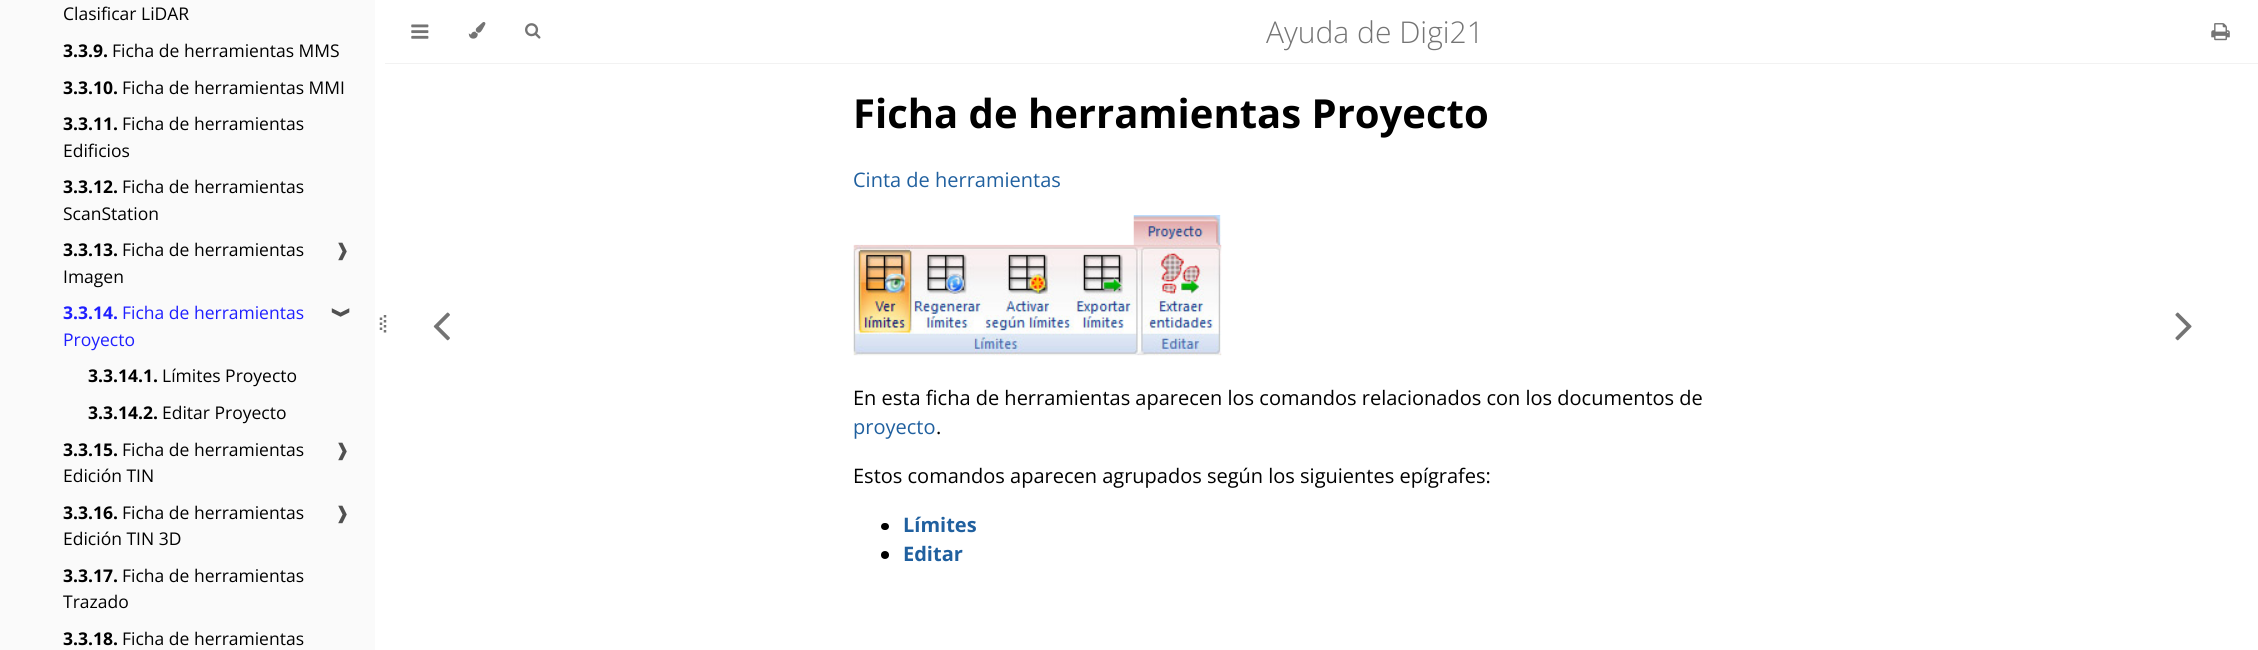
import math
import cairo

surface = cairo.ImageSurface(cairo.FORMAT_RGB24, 2258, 650)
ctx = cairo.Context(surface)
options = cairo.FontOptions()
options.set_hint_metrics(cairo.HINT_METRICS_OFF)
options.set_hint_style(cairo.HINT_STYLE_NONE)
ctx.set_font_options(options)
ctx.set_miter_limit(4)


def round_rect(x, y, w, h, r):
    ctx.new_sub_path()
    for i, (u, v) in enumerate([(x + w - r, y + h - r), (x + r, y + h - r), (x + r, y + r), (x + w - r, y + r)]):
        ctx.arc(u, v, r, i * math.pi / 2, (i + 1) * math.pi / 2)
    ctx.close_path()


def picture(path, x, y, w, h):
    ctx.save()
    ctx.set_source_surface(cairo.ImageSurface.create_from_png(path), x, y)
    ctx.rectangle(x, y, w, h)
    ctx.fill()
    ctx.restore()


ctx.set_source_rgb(1, 1, 1)
ctx.paint()
ctx.set_source_rgb(0.98, 0.98, 0.98)
ctx.rectangle(0, 0, 375, 650)
ctx.fill()
ctx.select_font_face("Open Sans")
ctx.set_font_size(17.5)
ctx.set_source_rgb(0, 0, 0)
ctx.move_to(63, 20)
ctx.show_text("Clasificar LiDAR")
ctx.select_font_face("Open Sans", cairo.FONT_SLANT_NORMAL, cairo.FONT_WEIGHT_BOLD)
ctx.move_to(63, 57)
ctx.show_text("3.3.9.")
ctx.select_font_face("Open Sans")
ctx.move_to(112, 57)
ctx.show_text("Ficha de herramientas MMS")
ctx.select_font_face("Open Sans", cairo.FONT_SLANT_NORMAL, cairo.FONT_WEIGHT_BOLD)
ctx.move_to(63, 94)
ctx.show_text("3.3.10.")
ctx.select_font_face("Open Sans")
ctx.move_to(122, 94)
ctx.show_text("Ficha de herramientas MMI")
ctx.select_font_face("Open Sans", cairo.FONT_SLANT_NORMAL, cairo.FONT_WEIGHT_BOLD)
ctx.move_to(63, 130)
ctx.show_text("3.3.11.")
ctx.select_font_face("Open Sans")
ctx.move_to(122, 130)
ctx.show_text("Ficha de herramientas")
ctx.move_to(63, 157)
ctx.show_text("Edificios")
ctx.select_font_face("Open Sans", cairo.FONT_SLANT_NORMAL, cairo.FONT_WEIGHT_BOLD)
ctx.move_to(63, 193)
ctx.show_text("3.3.12.")
ctx.select_font_face("Open Sans")
ctx.move_to(122, 193)
ctx.show_text("Ficha de herramientas")
ctx.move_to(63, 220)
ctx.show_text("ScanStation")
ctx.select_font_face("Open Sans", cairo.FONT_SLANT_NORMAL, cairo.FONT_WEIGHT_BOLD)
ctx.move_to(63, 256)
ctx.show_text("3.3.13.")
ctx.select_font_face("Open Sans")
ctx.move_to(122, 256)
ctx.show_text("Ficha de herramientas")
ctx.move_to(63, 283)
ctx.show_text("Imagen")
ctx.select_font_face("DejaVu Sans")
ctx.set_source_rgb(0.314, 0.314, 0.314)
ctx.move_to(335, 256)
ctx.show_text("❱")
ctx.select_font_face("Open Sans", cairo.FONT_SLANT_NORMAL, cairo.FONT_WEIGHT_BOLD)
ctx.set_source_rgb(0.122, 0.122, 1)
ctx.move_to(63, 319)
ctx.show_text("3.3.14.")
ctx.select_font_face("Open Sans")
ctx.move_to(122, 319)
ctx.show_text("Ficha de herramientas")
ctx.move_to(63, 346)
ctx.show_text("Proyecto")
ctx.select_font_face("DejaVu Sans")
ctx.set_source_rgb(0.314, 0.314, 0.314)
ctx.save()
ctx.translate(336, 305)
ctx.rotate(90 * math.pi / 180)
ctx.move_to(0, 0)
ctx.show_text("❱")
ctx.restore()
ctx.select_font_face("Open Sans", cairo.FONT_SLANT_NORMAL, cairo.FONT_WEIGHT_BOLD)
ctx.set_source_rgb(0, 0, 0)
ctx.move_to(88, 382)
ctx.show_text("3.3.14.1.")
ctx.select_font_face("Open Sans")
ctx.move_to(162, 382)
ctx.show_text("Límites Proyecto")
ctx.select_font_face("Open Sans", cairo.FONT_SLANT_NORMAL, cairo.FONT_WEIGHT_BOLD)
ctx.move_to(88, 419)
ctx.show_text("3.3.14.2.")
ctx.select_font_face("Open Sans")
ctx.move_to(162, 419)
ctx.show_text("Editar Proyecto")
ctx.select_font_face("Open Sans", cairo.FONT_SLANT_NORMAL, cairo.FONT_WEIGHT_BOLD)
ctx.move_to(63, 456)
ctx.show_text("3.3.15.")
ctx.select_font_face("Open Sans")
ctx.move_to(122, 456)
ctx.show_text("Ficha de herramientas")
ctx.move_to(63, 482)
ctx.show_text("Edición TIN")
ctx.select_font_face("DejaVu Sans")
ctx.set_source_rgb(0.314, 0.314, 0.314)
ctx.move_to(335, 456)
ctx.show_text("❱")
ctx.select_font_face("Open Sans", cairo.FONT_SLANT_NORMAL, cairo.FONT_WEIGHT_BOLD)
ctx.set_source_rgb(0, 0, 0)
ctx.move_to(63, 519)
ctx.show_text("3.3.16.")
ctx.select_font_face("Open Sans")
ctx.move_to(122, 519)
ctx.show_text("Ficha de herramientas")
ctx.move_to(63, 545)
ctx.show_text("Edición TIN 3D")
ctx.select_font_face("DejaVu Sans")
ctx.set_source_rgb(0.314, 0.314, 0.314)
ctx.move_to(335, 519)
ctx.show_text("❱")
ctx.select_font_face("Open Sans", cairo.FONT_SLANT_NORMAL, cairo.FONT_WEIGHT_BOLD)
ctx.set_source_rgb(0, 0, 0)
ctx.move_to(63, 582)
ctx.show_text("3.3.17.")
ctx.select_font_face("Open Sans")
ctx.move_to(122, 582)
ctx.show_text("Ficha de herramientas")
ctx.move_to(63, 608)
ctx.show_text("Trazado")
ctx.select_font_face("Open Sans", cairo.FONT_SLANT_NORMAL, cairo.FONT_WEIGHT_BOLD)
ctx.move_to(63, 645)
ctx.show_text("3.3.18.")
ctx.select_font_face("Open Sans")
ctx.move_to(122, 645)
ctx.show_text("Ficha de herramientas")
ctx.new_path()
ctx.move_to(381, 317.5)
ctx.line_to(381, 320)
ctx.move_to(381, 322.5)
ctx.line_to(381, 325)
ctx.move_to(381, 327.5)
ctx.line_to(381, 330)
ctx.set_source_rgb(0.455, 0.455, 0.455)
ctx.set_line_width(2.5)
ctx.stroke()
ctx.new_path()
ctx.move_to(385, 315)
ctx.line_to(385, 335)
ctx.set_dash([2.5, 2.5])
ctx.stroke()
ctx.set_source_rgb(0.949, 0.949, 0.949)
ctx.rectangle(385, 63, 1873, 1)
ctx.fill()
picture("img1.png", 411, 24, 18, 15)
picture("img2.png", 468, 22, 18, 17)
picture("img3.png", 525, 23, 16, 16)
ctx.select_font_face("Open Sans Light")
ctx.set_font_size(30)
ctx.set_source_rgb(0.455, 0.455, 0.455)
ctx.move_to(1266, 43)
ctx.show_text("Ayuda de Digi21")
picture("img4.png", 2211, 23, 19, 18)
ctx.select_font_face("Open Sans", cairo.FONT_SLANT_NORMAL, cairo.FONT_WEIGHT_BOLD)
ctx.set_font_size(40)
ctx.set_source_rgb(0, 0, 0)
ctx.move_to(853, 128)
ctx.show_text("Ficha de herramientas Proyecto")
ctx.select_font_face("Open Sans")
ctx.set_font_size(20)
ctx.set_source_rgb(0.125, 0.376, 0.624)
ctx.move_to(853, 187)
ctx.show_text("Cinta de herramientas")
picture("img5.png", 853, 215, 369, 141)
ctx.set_source_rgb(0, 0, 0)
ctx.move_to(853, 405)
ctx.show_text("En esta ficha de herramientas aparecen los comandos relacionados con los documentos de")
ctx.set_source_rgb(0.125, 0.376, 0.624)
ctx.move_to(853, 434)
ctx.show_text("proyecto")
ctx.set_source_rgb(0, 0, 0)
ctx.move_to(936, 434)
ctx.show_text(".")
ctx.move_to(853, 483)
ctx.show_text("Estos comandos aparecen agrupados según los siguientes epígrafes:")
round_rect(881, 523, 8, 7, 3.5)
ctx.fill()
ctx.select_font_face("Open Sans", cairo.FONT_SLANT_NORMAL, cairo.FONT_WEIGHT_BOLD)
ctx.set_source_rgb(0.125, 0.376, 0.624)
ctx.move_to(903, 532)
ctx.show_text("Límites")
ctx.set_source_rgb(0, 0, 0)
ctx.new_path()
ctx.arc(885, 555, 4, 0, 2 * math.pi)
ctx.fill()
ctx.set_source_rgb(0.125, 0.376, 0.624)
ctx.move_to(903, 561)
ctx.show_text("Editar")
picture("img6.png", 433, 312, 17, 29)
picture("img7.png", 2175, 312, 17, 29)
surface.write_to_png("page.png")
